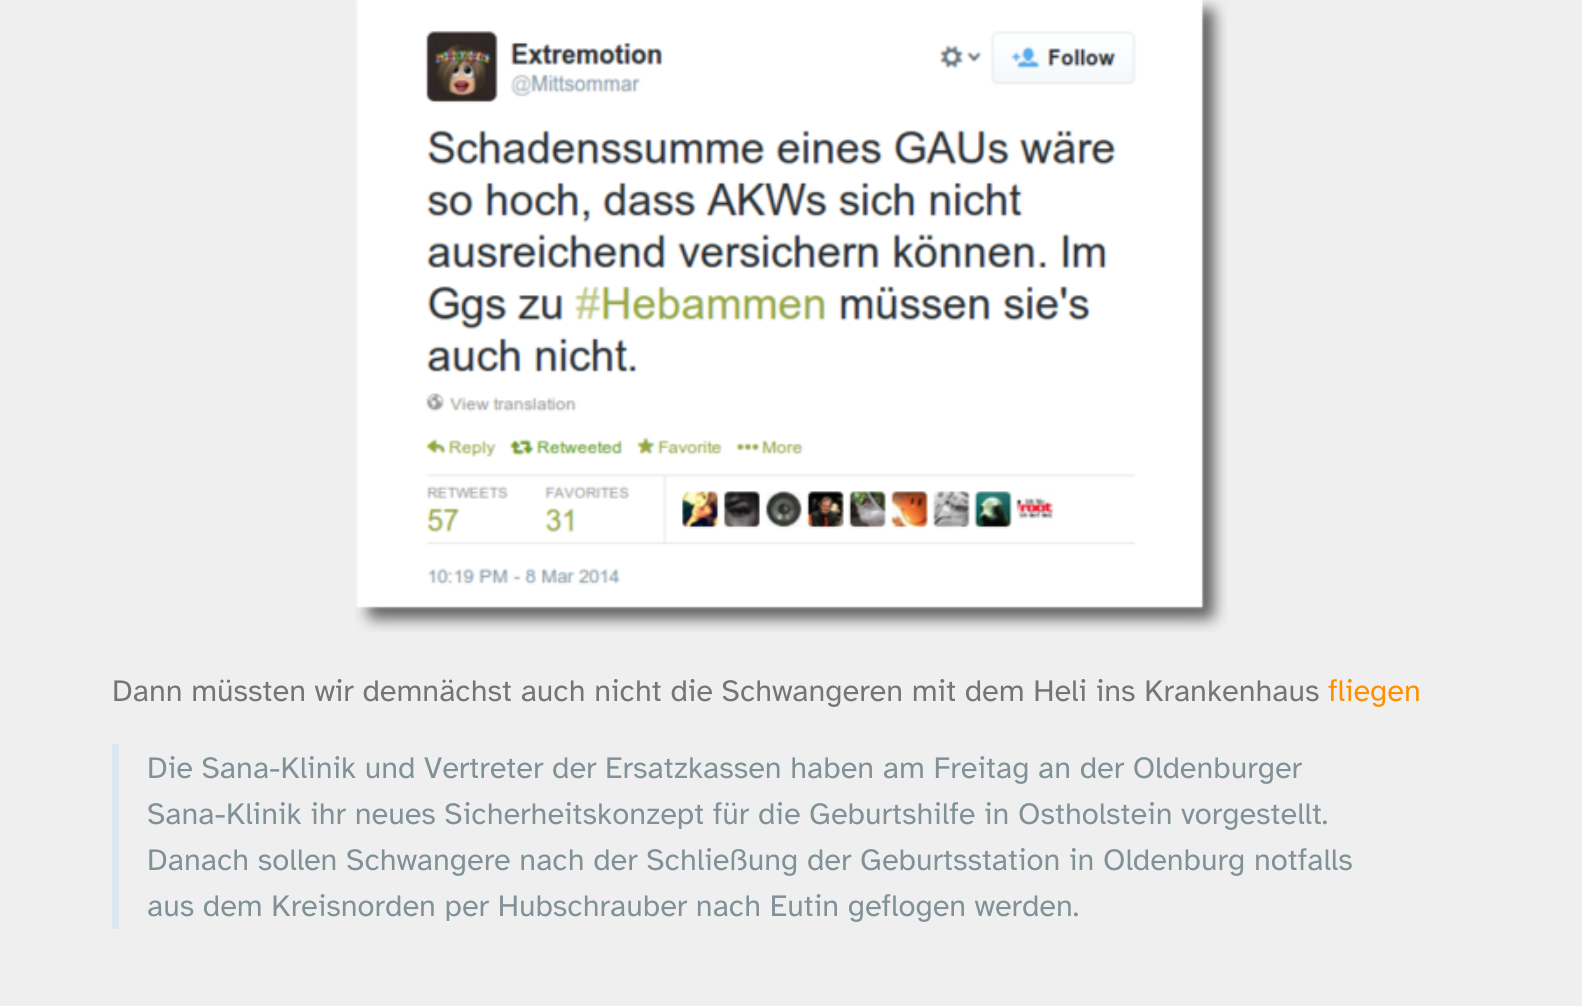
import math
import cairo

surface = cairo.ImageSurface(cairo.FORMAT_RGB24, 1582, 1006)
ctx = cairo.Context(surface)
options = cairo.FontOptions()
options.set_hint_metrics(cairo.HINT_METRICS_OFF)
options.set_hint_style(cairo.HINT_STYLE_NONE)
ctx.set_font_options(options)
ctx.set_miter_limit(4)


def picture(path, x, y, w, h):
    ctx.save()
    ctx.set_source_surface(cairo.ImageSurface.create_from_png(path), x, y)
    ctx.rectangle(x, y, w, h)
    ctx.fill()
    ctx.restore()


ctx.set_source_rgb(0.937, 0.937, 0.937)
ctx.paint()
picture("img1.png", 355, 0, 872, 632)
ctx.select_font_face("Atkinson Hyperlegible")
ctx.set_font_size(30.8)
ctx.set_source_rgb(0.459, 0.459, 0.459)
ctx.move_to(112, 701)
ctx.show_text("Dann müssten wir demnächst auch nicht die Schwangeren mit dem Heli ins Krankenhaus")
ctx.set_source_rgb(1, 0.561, 0)
ctx.move_to(1328, 701)
ctx.show_text("fliegen")
ctx.set_source_rgb(0.863, 0.902, 0.941)
ctx.rectangle(112, 744, 7, 185)
ctx.fill()
ctx.set_source_rgb(0.506, 0.569, 0.596)
ctx.move_to(147, 778)
ctx.show_text("Die Sana-Klinik und Vertreter der Ersatzkassen haben am Freitag an der Oldenburger")
ctx.move_to(147, 824)
ctx.show_text("Sana-Klinik ihr neues Sicherheitskonzept für die Geburtshilfe in Ostholstein vorgestellt.")
ctx.move_to(147, 870)
ctx.show_text("Danach sollen Schwangere nach der Schließung der Geburtsstation in Oldenburg notfalls")
ctx.move_to(147, 916)
ctx.show_text("aus dem Kreisnorden per Hubschrauber nach Eutin geflogen werden.")
surface.write_to_png("page.png")
